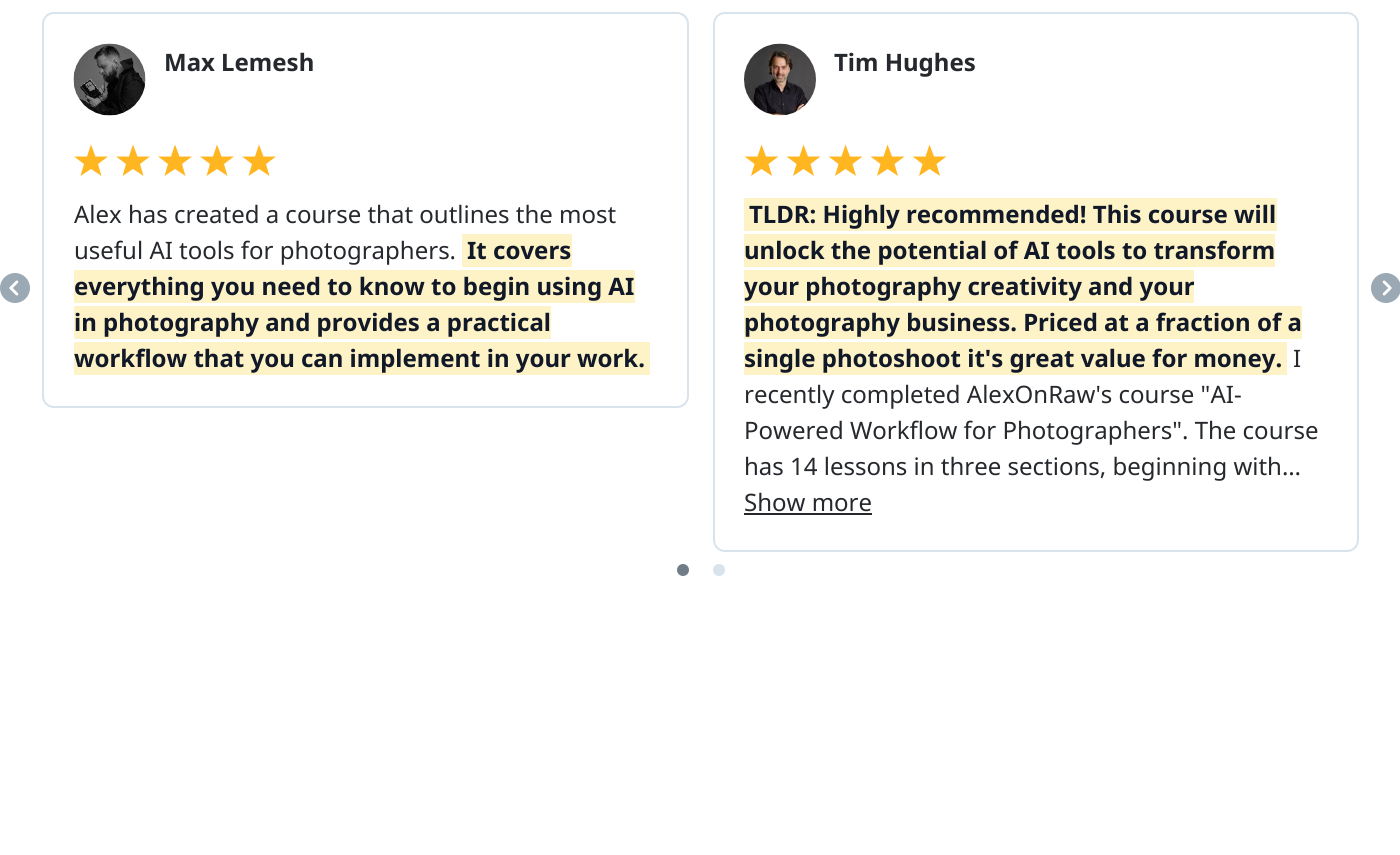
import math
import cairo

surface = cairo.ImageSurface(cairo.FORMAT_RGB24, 1400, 855)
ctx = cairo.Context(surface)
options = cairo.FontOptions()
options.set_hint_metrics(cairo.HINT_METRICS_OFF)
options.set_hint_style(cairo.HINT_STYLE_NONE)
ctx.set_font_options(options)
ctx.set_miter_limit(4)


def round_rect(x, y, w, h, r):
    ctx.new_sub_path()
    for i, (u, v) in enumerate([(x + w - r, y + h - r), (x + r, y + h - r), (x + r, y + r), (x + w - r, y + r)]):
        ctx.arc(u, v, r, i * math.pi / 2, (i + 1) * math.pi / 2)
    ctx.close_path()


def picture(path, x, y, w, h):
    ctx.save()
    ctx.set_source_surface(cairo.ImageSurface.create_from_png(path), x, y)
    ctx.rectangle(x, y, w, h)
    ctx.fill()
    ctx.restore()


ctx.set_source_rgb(1, 1, 1)
ctx.paint()
picture("img1.png", 0, 273, 30, 30)
round_rect(43, 13, 645, 394, 11)
ctx.set_source_rgb(0.851, 0.89, 0.918)
ctx.stroke()
picture("img2.png", 73, 43, 73, 73)
ctx.select_font_face("Noto Sans", cairo.FONT_SLANT_NORMAL, cairo.FONT_WEIGHT_BOLD)
ctx.set_font_size(24)
ctx.set_source_rgb(0.145, 0.157, 0.173)
ctx.move_to(164, 71)
ctx.show_text("Max Lemesh")
ctx.set_source_rgb(1, 0.714, 0.129)
ctx.new_path()
ctx.move_to(91, 144.5)
ctx.line_to(95.5, 156.5)
ctx.line_to(108, 156.5)
ctx.line_to(98, 164)
ctx.line_to(101.5, 176)
ctx.line_to(91, 169)
ctx.line_to(80.5, 176)
ctx.line_to(84, 164)
ctx.line_to(74, 156.5)
ctx.line_to(87, 156.5)
ctx.close_path()
ctx.fill()
ctx.new_path()
ctx.move_to(133, 144.5)
ctx.line_to(137.5, 156.5)
ctx.line_to(150, 156.5)
ctx.line_to(140, 164)
ctx.line_to(143.5, 176)
ctx.line_to(133, 169)
ctx.line_to(122.5, 176)
ctx.line_to(126, 164)
ctx.line_to(116, 156.5)
ctx.line_to(129, 156.5)
ctx.close_path()
ctx.fill()
ctx.new_path()
ctx.move_to(175, 144.5)
ctx.line_to(179.5, 156.5)
ctx.line_to(192, 156.5)
ctx.line_to(182, 164)
ctx.line_to(185.5, 176)
ctx.line_to(175, 169)
ctx.line_to(164.5, 176)
ctx.line_to(168, 164)
ctx.line_to(158, 156.5)
ctx.line_to(171, 156.5)
ctx.close_path()
ctx.fill()
ctx.new_path()
ctx.move_to(217, 144.5)
ctx.line_to(221.5, 156.5)
ctx.line_to(234, 156.5)
ctx.line_to(224, 164)
ctx.line_to(227.5, 176)
ctx.line_to(217, 169)
ctx.line_to(206.5, 176)
ctx.line_to(210, 164)
ctx.line_to(200, 156.5)
ctx.line_to(213, 156.5)
ctx.close_path()
ctx.fill()
ctx.new_path()
ctx.move_to(259, 144.5)
ctx.line_to(263.5, 156.5)
ctx.line_to(276, 156.5)
ctx.line_to(266, 164)
ctx.line_to(269.5, 176)
ctx.line_to(259, 169)
ctx.line_to(248.5, 176)
ctx.line_to(252, 164)
ctx.line_to(242, 156.5)
ctx.line_to(255, 156.5)
ctx.close_path()
ctx.fill()
ctx.select_font_face("Noto Sans")
ctx.set_source_rgb(0.145, 0.157, 0.173)
ctx.move_to(74, 223)
ctx.show_text("Alex has created a course that outlines the most")
ctx.move_to(74, 259)
ctx.show_text("useful AI tools for photographers.")
ctx.set_source_rgb(0.996, 0.953, 0.78)
ctx.rectangle(462, 234, 110, 33)
ctx.fill()
ctx.select_font_face("Noto Sans", cairo.FONT_SLANT_NORMAL, cairo.FONT_WEIGHT_BOLD)
ctx.set_source_rgb(0.067, 0.094, 0.153)
ctx.move_to(467, 259)
ctx.show_text("It covers")
ctx.set_source_rgb(0.996, 0.953, 0.78)
ctx.rectangle(74, 270, 561, 33)
ctx.fill()
ctx.set_source_rgb(0.067, 0.094, 0.153)
ctx.move_to(74, 295)
ctx.show_text("everything you need to know to begin using AI")
ctx.set_source_rgb(0.996, 0.953, 0.78)
ctx.rectangle(74, 306, 477, 33)
ctx.fill()
ctx.set_source_rgb(0.067, 0.094, 0.153)
ctx.move_to(74, 331)
ctx.show_text("in photography and provides a practical")
ctx.set_source_rgb(0.996, 0.953, 0.78)
ctx.rectangle(74, 342, 576, 33)
ctx.fill()
ctx.set_source_rgb(0.067, 0.094, 0.153)
ctx.move_to(74, 367)
ctx.show_text("workflow that you can implement in your work.")
round_rect(714, 13, 644, 538, 11)
ctx.set_source_rgb(0.851, 0.89, 0.918)
ctx.stroke()
picture("img3.png", 744, 43, 72, 73)
ctx.set_source_rgb(0.145, 0.157, 0.173)
ctx.move_to(834, 71)
ctx.show_text("Tim Hughes")
ctx.set_source_rgb(1, 0.714, 0.129)
ctx.new_path()
ctx.move_to(761.5, 144.5)
ctx.line_to(766, 156.5)
ctx.line_to(778.5, 156.5)
ctx.line_to(768.5, 164)
ctx.line_to(772, 176)
ctx.line_to(761.5, 169)
ctx.line_to(751, 176)
ctx.line_to(754.5, 164)
ctx.line_to(744.5, 156.5)
ctx.line_to(757.5, 156.5)
ctx.close_path()
ctx.fill()
ctx.new_path()
ctx.move_to(803.5, 144.5)
ctx.line_to(808, 156.5)
ctx.line_to(820.5, 156.5)
ctx.line_to(810.5, 164)
ctx.line_to(814, 176)
ctx.line_to(803.5, 169)
ctx.line_to(793, 176)
ctx.line_to(796.5, 164)
ctx.line_to(786.5, 156.5)
ctx.line_to(799.5, 156.5)
ctx.close_path()
ctx.fill()
ctx.new_path()
ctx.move_to(845.5, 144.5)
ctx.line_to(850, 156.5)
ctx.line_to(862.5, 156.5)
ctx.line_to(852.5, 164)
ctx.line_to(856, 176)
ctx.line_to(845.5, 169)
ctx.line_to(835, 176)
ctx.line_to(838.5, 164)
ctx.line_to(828.5, 156.5)
ctx.line_to(841.5, 156.5)
ctx.close_path()
ctx.fill()
ctx.new_path()
ctx.move_to(887.5, 144.5)
ctx.line_to(892, 156.5)
ctx.line_to(904.5, 156.5)
ctx.line_to(894.5, 164)
ctx.line_to(898, 176)
ctx.line_to(887.5, 169)
ctx.line_to(877, 176)
ctx.line_to(880.5, 164)
ctx.line_to(870.5, 156.5)
ctx.line_to(883.5, 156.5)
ctx.close_path()
ctx.fill()
ctx.new_path()
ctx.move_to(929.5, 144.5)
ctx.line_to(934, 156.5)
ctx.line_to(946.5, 156.5)
ctx.line_to(936.5, 164)
ctx.line_to(940, 176)
ctx.line_to(929.5, 169)
ctx.line_to(919, 176)
ctx.line_to(922.5, 164)
ctx.line_to(912.5, 156.5)
ctx.line_to(925.5, 156.5)
ctx.close_path()
ctx.fill()
ctx.set_source_rgb(0.996, 0.953, 0.78)
ctx.rectangle(744, 198, 533, 33)
ctx.fill()
ctx.set_source_rgb(0.067, 0.094, 0.153)
ctx.move_to(749, 223)
ctx.show_text("TLDR: Highly recommended! This course will")
ctx.set_source_rgb(0.996, 0.953, 0.78)
ctx.rectangle(744, 234, 531, 33)
ctx.fill()
ctx.set_source_rgb(0.067, 0.094, 0.153)
ctx.move_to(744, 259)
ctx.show_text("unlock the potential of AI tools to transform")
ctx.set_source_rgb(0.996, 0.953, 0.78)
ctx.rectangle(744, 270, 450, 33)
ctx.fill()
ctx.set_source_rgb(0.067, 0.094, 0.153)
ctx.move_to(744, 295)
ctx.show_text("your photography creativity and your")
ctx.set_source_rgb(0.996, 0.953, 0.78)
ctx.rectangle(744, 306, 558, 33)
ctx.fill()
ctx.set_source_rgb(0.067, 0.094, 0.153)
ctx.move_to(744, 331)
ctx.show_text("photography business. Priced at a fraction of a")
ctx.set_source_rgb(0.996, 0.953, 0.78)
ctx.rectangle(744, 342, 543, 33)
ctx.fill()
ctx.set_source_rgb(0.067, 0.094, 0.153)
ctx.move_to(744, 367)
ctx.show_text("single photoshoot it's great value for money.")
ctx.select_font_face("Noto Sans")
ctx.set_source_rgb(0.145, 0.157, 0.173)
ctx.move_to(1293, 367)
ctx.show_text("I")
ctx.move_to(744, 403)
ctx.show_text("recently completed AlexOnRaw's course \"AI-")
ctx.move_to(744, 439)
ctx.show_text("Powered Workflow for Photographers\". The course")
ctx.move_to(744, 475)
ctx.show_text("has 14 lessons in three sections, beginning with…")
ctx.move_to(744, 511)
ctx.show_text("Show more")
ctx.rectangle(744, 513, 128, 2)
ctx.fill()
ctx.set_source_rgb(0.439, 0.49, 0.525)
ctx.arc(683, 570, 6, 0, 2 * math.pi)
ctx.fill()
ctx.set_source_rgb(0.851, 0.89, 0.918)
ctx.arc(719, 570, 6, 0, 2 * math.pi)
ctx.fill()
picture("img4.png", 1371, 273, 29, 30)
surface.write_to_png("page.png")
